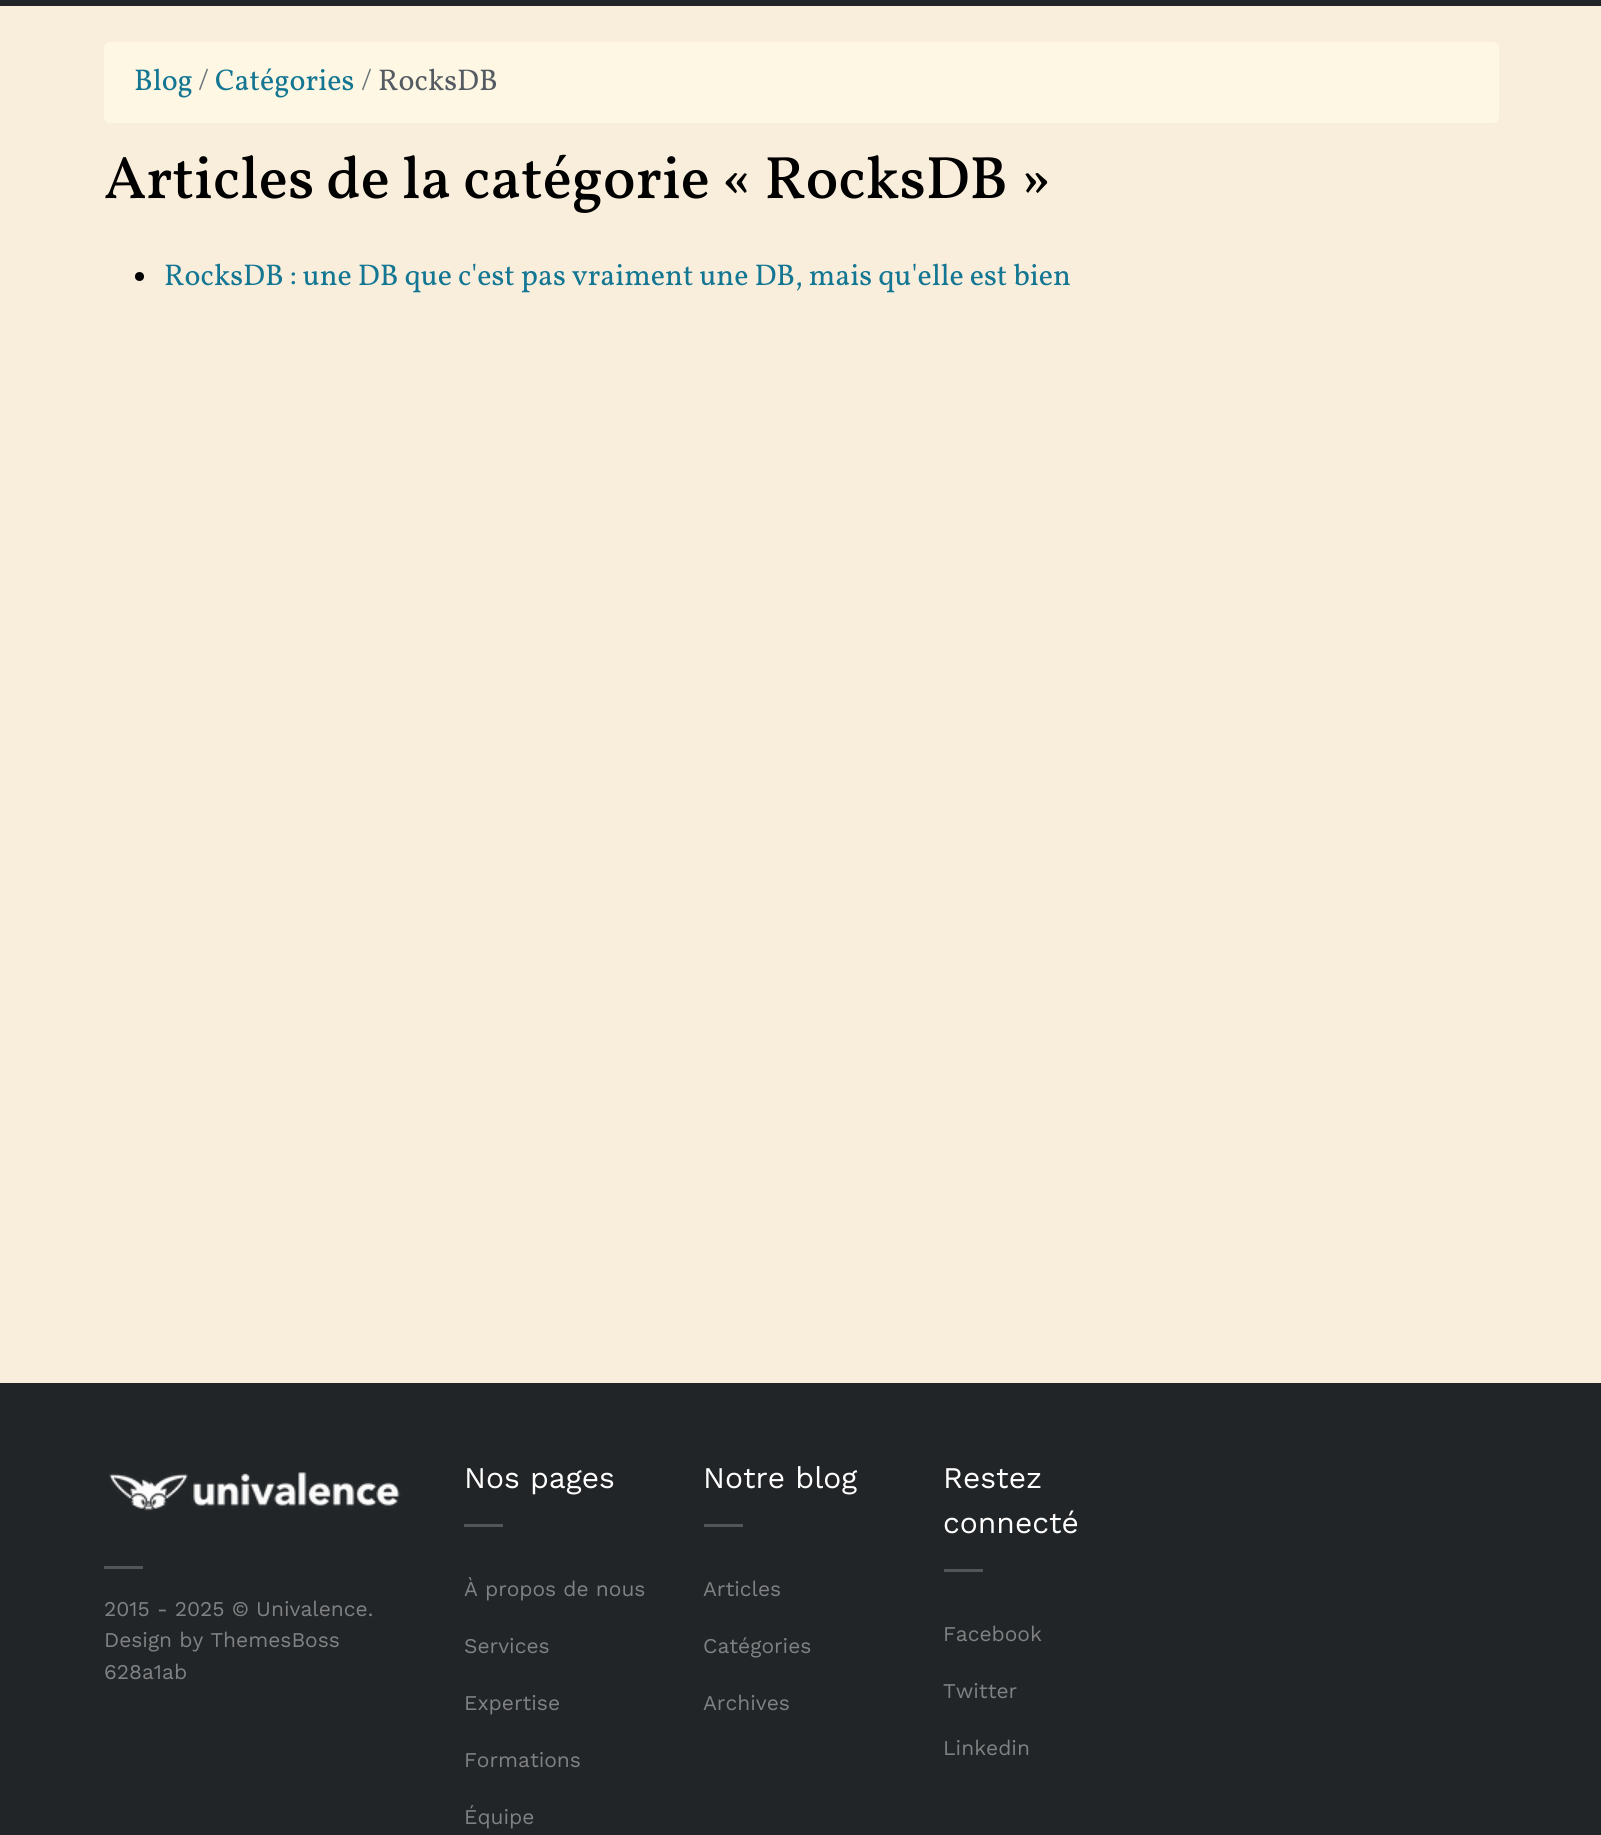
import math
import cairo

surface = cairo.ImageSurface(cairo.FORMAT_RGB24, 1601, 1835)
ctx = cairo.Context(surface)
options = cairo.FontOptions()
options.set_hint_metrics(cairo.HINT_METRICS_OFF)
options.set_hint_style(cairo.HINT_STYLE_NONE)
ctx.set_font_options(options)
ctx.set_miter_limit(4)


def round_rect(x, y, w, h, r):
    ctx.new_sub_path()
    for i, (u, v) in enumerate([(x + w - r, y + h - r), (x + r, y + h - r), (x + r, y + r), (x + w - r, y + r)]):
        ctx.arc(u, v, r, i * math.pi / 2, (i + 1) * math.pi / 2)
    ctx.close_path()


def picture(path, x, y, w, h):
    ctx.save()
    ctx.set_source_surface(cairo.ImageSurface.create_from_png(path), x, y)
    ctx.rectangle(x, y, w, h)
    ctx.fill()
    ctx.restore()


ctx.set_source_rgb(0.133, 0.145, 0.153)
ctx.paint()
ctx.set_source_rgb(0.973, 0.933, 0.863)
ctx.rectangle(0, 6, 1601, 1377)
ctx.fill()
ctx.set_source_rgb(0.992, 0.965, 0.89)
round_rect(104, 42, 1395, 81, 6)
ctx.fill()
ctx.select_font_face("Vollkorn")
ctx.set_font_size(30)
ctx.set_source_rgb(0.078, 0.463, 0.576)
ctx.move_to(134, 90)
ctx.show_text("Blog")
ctx.set_source_rgb(0.424, 0.459, 0.49)
ctx.move_to(198, 90)
ctx.show_text("/")
ctx.set_source_rgb(0.078, 0.463, 0.576)
ctx.move_to(215, 90)
ctx.show_text("Catégories")
ctx.set_source_rgb(0.424, 0.459, 0.49)
ctx.move_to(361, 90)
ctx.show_text("/")
ctx.set_source_rgb(0.329, 0.357, 0.384)
ctx.move_to(378, 90)
ctx.show_text("RocksDB")
ctx.select_font_face("Vollkorn Medium")
ctx.set_font_size(60)
ctx.set_source_rgb(0, 0, 0)
ctx.move_to(104, 198)
ctx.show_text("Articles de la catégorie « RocksDB »")
ctx.new_path()
ctx.arc(139.5, 276.5, 4.5, 0, 2 * math.pi)
ctx.fill()
ctx.select_font_face("Vollkorn")
ctx.set_font_size(30)
ctx.set_source_rgb(0.078, 0.463, 0.576)
ctx.move_to(164, 285)
ctx.show_text("RocksDB : une DB que c'est pas vraiment une DB, mais qu'elle est bien")
picture("img1.png", 109, 1472, 293, 39)
ctx.set_source_rgb(0.325, 0.333, 0.341)
ctx.rectangle(104, 1566, 39, 3)
ctx.fill()
ctx.select_font_face("Work Sans")
ctx.set_font_size(21)
ctx.set_source_rgb(0.498, 0.506, 0.51)
ctx.move_to(104, 1616)
ctx.show_text("2015 - 2025 © Univalence.")
ctx.move_to(104, 1647)
ctx.show_text("Design by ThemesBoss")
ctx.move_to(104, 1679)
ctx.show_text("628a1ab")
ctx.set_font_size(30)
ctx.set_source_rgb(1, 1, 1)
ctx.move_to(464, 1488)
ctx.show_text("Nos pages")
ctx.set_source_rgb(0.325, 0.333, 0.341)
ctx.rectangle(464, 1524, 39, 3)
ctx.fill()
ctx.set_font_size(21)
ctx.set_source_rgb(0.498, 0.506, 0.51)
ctx.move_to(464, 1596)
ctx.show_text("À propos de nous")
ctx.move_to(464, 1653)
ctx.show_text("Services")
ctx.move_to(464, 1710)
ctx.show_text("Expertise")
ctx.move_to(464, 1767)
ctx.show_text("Formations")
ctx.move_to(464, 1824)
ctx.show_text("Équipe")
ctx.set_font_size(30)
ctx.set_source_rgb(1, 1, 1)
ctx.move_to(703, 1488)
ctx.show_text("Notre blog")
ctx.set_source_rgb(0.325, 0.333, 0.341)
ctx.rectangle(704, 1524, 39, 3)
ctx.fill()
ctx.set_font_size(21)
ctx.set_source_rgb(0.498, 0.506, 0.51)
ctx.move_to(703, 1596)
ctx.show_text("Articles")
ctx.move_to(703, 1653)
ctx.show_text("Catégories")
ctx.move_to(703, 1710)
ctx.show_text("Archives")
ctx.set_font_size(30)
ctx.set_source_rgb(1, 1, 1)
ctx.move_to(943, 1488)
ctx.show_text("Restez")
ctx.move_to(943, 1533)
ctx.show_text("connecté")
ctx.set_source_rgb(0.325, 0.333, 0.341)
ctx.rectangle(944, 1569, 39, 3)
ctx.fill()
ctx.set_font_size(21)
ctx.set_source_rgb(0.498, 0.506, 0.51)
ctx.move_to(943, 1641)
ctx.show_text("Facebook")
ctx.move_to(943, 1698)
ctx.show_text("Twitter")
ctx.move_to(943, 1755)
ctx.show_text("Linkedin")
surface.write_to_png("page.png")
